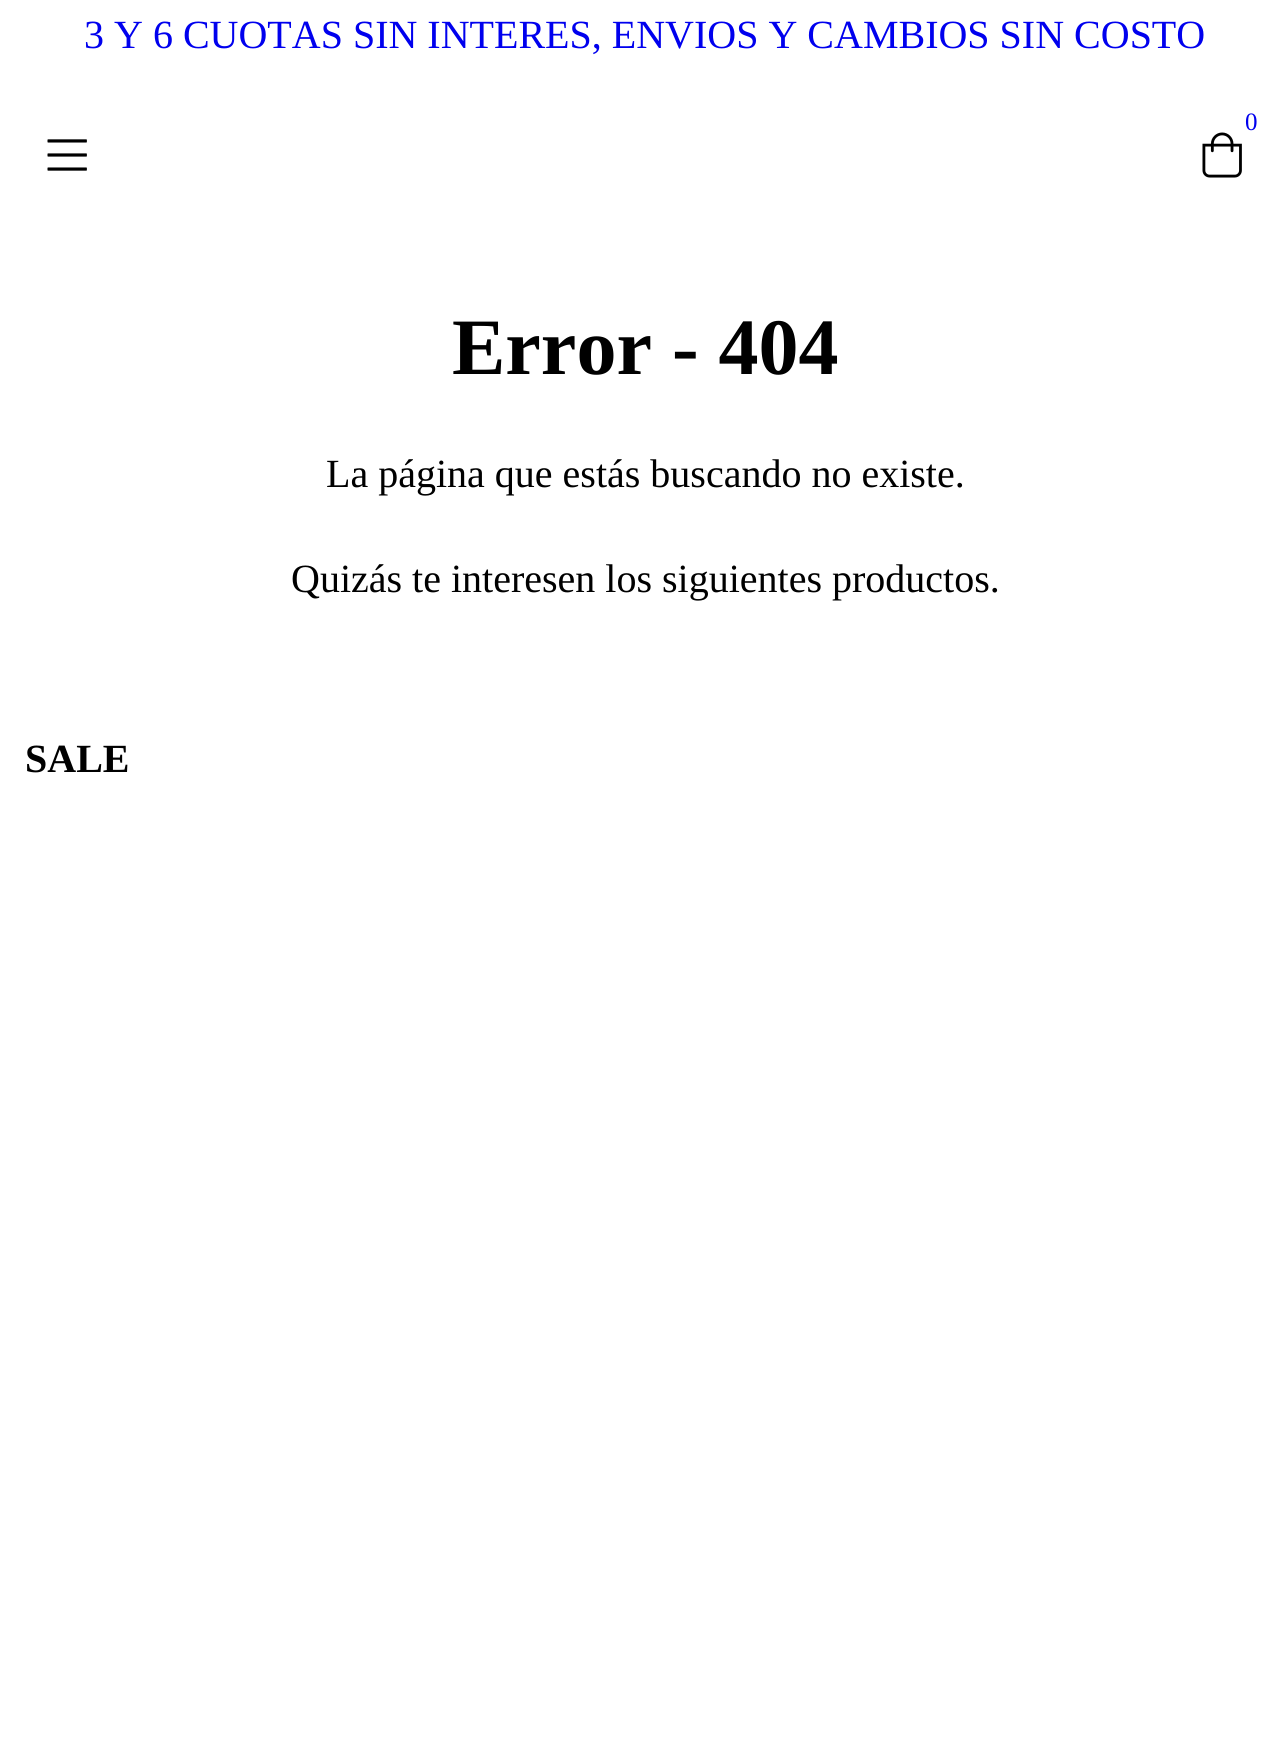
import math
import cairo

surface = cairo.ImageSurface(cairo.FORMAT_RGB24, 1288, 1741)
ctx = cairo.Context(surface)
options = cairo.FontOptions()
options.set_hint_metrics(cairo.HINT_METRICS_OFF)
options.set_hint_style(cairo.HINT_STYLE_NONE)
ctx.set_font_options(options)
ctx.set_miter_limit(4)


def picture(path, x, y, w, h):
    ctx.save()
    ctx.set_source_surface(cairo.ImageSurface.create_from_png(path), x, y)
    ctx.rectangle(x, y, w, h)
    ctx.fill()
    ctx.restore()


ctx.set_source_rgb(1, 1, 1)
ctx.paint()
ctx.select_font_face("Liberation Serif")
ctx.set_font_size(40)
ctx.set_source_rgb(0, 0, 0.933)
ctx.move_to(84, 48)
ctx.show_text("3 Y 6 CUOTAS SIN INTERES, ENVIOS Y CAMBIOS SIN COSTO")
ctx.set_font_size(25)
ctx.move_to(1245, 130)
ctx.show_text("0")
picture("img1.png", 1202, 132, 40, 46)
picture("img2.png", 47, 139, 40, 32)
ctx.select_font_face("Liberation Serif", cairo.FONT_SLANT_NORMAL, cairo.FONT_WEIGHT_BOLD)
ctx.set_font_size(80)
ctx.set_source_rgb(0, 0, 0)
ctx.move_to(452, 374)
ctx.show_text("Error - 404")
ctx.select_font_face("Liberation Serif")
ctx.set_font_size(40)
ctx.move_to(326, 487)
ctx.show_text("La página que estás buscando no existe.")
ctx.move_to(291, 592)
ctx.show_text("Quizás te interesen los siguientes productos.")
ctx.select_font_face("Liberation Serif", cairo.FONT_SLANT_NORMAL, cairo.FONT_WEIGHT_BOLD)
ctx.move_to(25, 772)
ctx.show_text("SALE")
surface.write_to_png("page.png")
